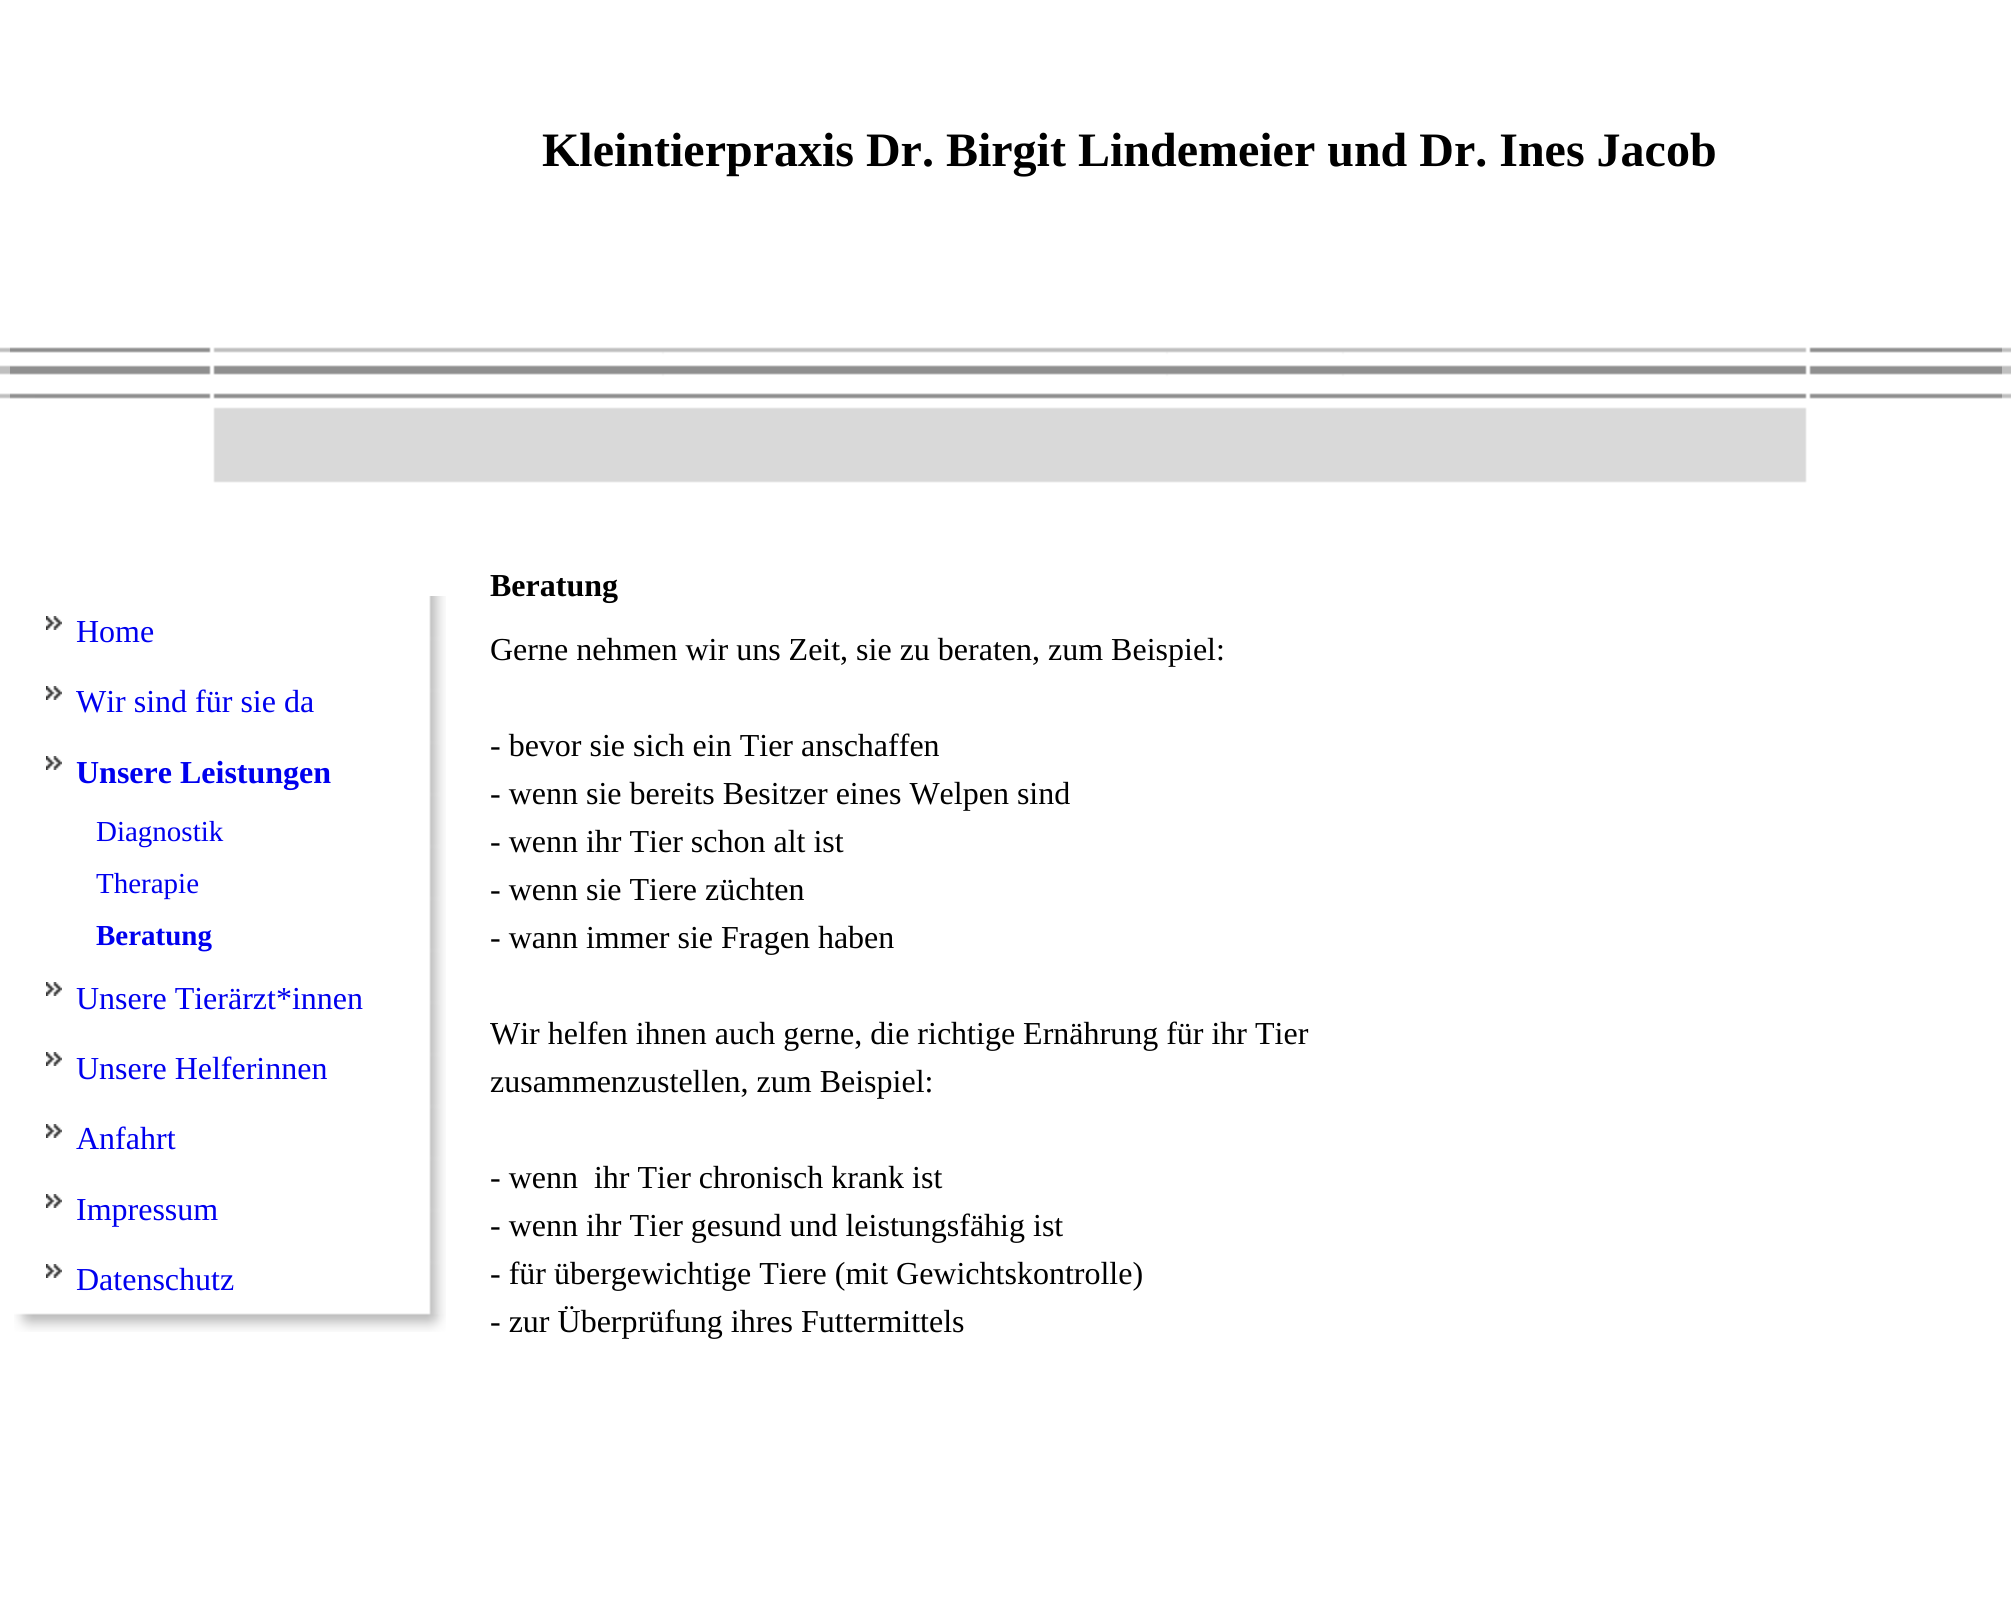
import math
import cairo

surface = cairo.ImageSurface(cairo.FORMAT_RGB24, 2011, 1624)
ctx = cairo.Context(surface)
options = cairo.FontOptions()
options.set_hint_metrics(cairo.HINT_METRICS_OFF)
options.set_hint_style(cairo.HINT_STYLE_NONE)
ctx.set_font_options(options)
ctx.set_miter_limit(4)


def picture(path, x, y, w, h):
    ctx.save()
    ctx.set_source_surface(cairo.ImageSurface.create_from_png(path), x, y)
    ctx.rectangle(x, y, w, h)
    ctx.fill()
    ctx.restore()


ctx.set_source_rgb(1, 1, 1)
ctx.paint()
picture("img1.png", 0, 347, 2011, 52)
ctx.select_font_face("Liberation Serif", cairo.FONT_SLANT_NORMAL, cairo.FONT_WEIGHT_BOLD)
ctx.set_font_size(48)
ctx.set_source_rgb(0, 0, 0)
ctx.move_to(542, 166)
ctx.show_text("Kleintierpraxis Dr. Birgit Lindemeier und Dr. Ines Jacob")
picture("img2.png", 10, 347, 1992, 136)
picture("img3.png", 14, 596, 432, 736)
picture("img4.png", 46, 616, 16, 14)
ctx.select_font_face("Liberation Serif")
ctx.set_font_size(32)
ctx.set_source_rgb(0, 0, 0.933)
ctx.move_to(76, 642)
ctx.show_text("Home")
picture("img4.png", 46, 686, 16, 14)
ctx.move_to(76, 712)
ctx.show_text("Wir sind für sie da")
picture("img4.png", 46, 756, 16, 14)
ctx.select_font_face("Liberation Serif", cairo.FONT_SLANT_NORMAL, cairo.FONT_WEIGHT_BOLD)
ctx.move_to(76, 783)
ctx.show_text("Unsere Leistungen")
ctx.select_font_face("Liberation Serif")
ctx.set_font_size(29)
ctx.move_to(96, 841)
ctx.show_text("Diagnostik")
ctx.move_to(96, 893)
ctx.show_text("Therapie")
ctx.select_font_face("Liberation Serif", cairo.FONT_SLANT_NORMAL, cairo.FONT_WEIGHT_BOLD)
ctx.move_to(96, 945)
ctx.show_text("Beratung")
picture("img4.png", 46, 982, 16, 14)
ctx.select_font_face("Liberation Serif")
ctx.set_font_size(32)
ctx.move_to(76, 1009)
ctx.show_text("Unsere Tierärzt*innen")
picture("img4.png", 46, 1052, 16, 14)
ctx.move_to(76, 1079)
ctx.show_text("Unsere Helferinnen")
picture("img4.png", 46, 1124, 16, 14)
ctx.move_to(76, 1149)
ctx.show_text("Anfahrt")
picture("img4.png", 46, 1194, 16, 14)
ctx.move_to(76, 1220)
ctx.show_text("Impressum")
picture("img4.png", 46, 1264, 16, 14)
ctx.move_to(76, 1290)
ctx.show_text("Datenschutz")
ctx.select_font_face("Liberation Serif", cairo.FONT_SLANT_NORMAL, cairo.FONT_WEIGHT_BOLD)
ctx.set_source_rgb(0, 0, 0)
ctx.move_to(490, 596)
ctx.show_text("Beratung")
ctx.select_font_face("Liberation Serif")
ctx.move_to(490, 660)
ctx.show_text("Gerne nehmen wir uns Zeit, sie zu beraten, zum Beispiel:")
ctx.move_to(490, 756)
ctx.show_text("- bevor sie sich ein Tier anschaffen")
ctx.move_to(490, 804)
ctx.show_text("- wenn sie bereits Besitzer eines Welpen sind")
ctx.move_to(490, 852)
ctx.show_text("- wenn ihr Tier schon alt ist")
ctx.move_to(490, 900)
ctx.show_text("- wenn sie Tiere züchten")
ctx.move_to(490, 948)
ctx.show_text("- wann immer sie Fragen haben")
ctx.move_to(490, 1044)
ctx.show_text("Wir helfen ihnen auch gerne, die richtige Ernährung für ihr Tier")
ctx.move_to(490, 1092)
ctx.show_text("zusammenzustellen, zum Beispiel:")
ctx.move_to(490, 1188)
ctx.show_text("- wenn  ihr Tier chronisch krank ist")
ctx.move_to(490, 1236)
ctx.show_text("- wenn ihr Tier gesund und leistungsfähig ist")
ctx.move_to(490, 1284)
ctx.show_text("- für übergewichtige Tiere (mit Gewichtskontrolle)")
ctx.move_to(490, 1332)
ctx.show_text("- zur Überprüfung ihres Futtermittels")
surface.write_to_png("page.png")
